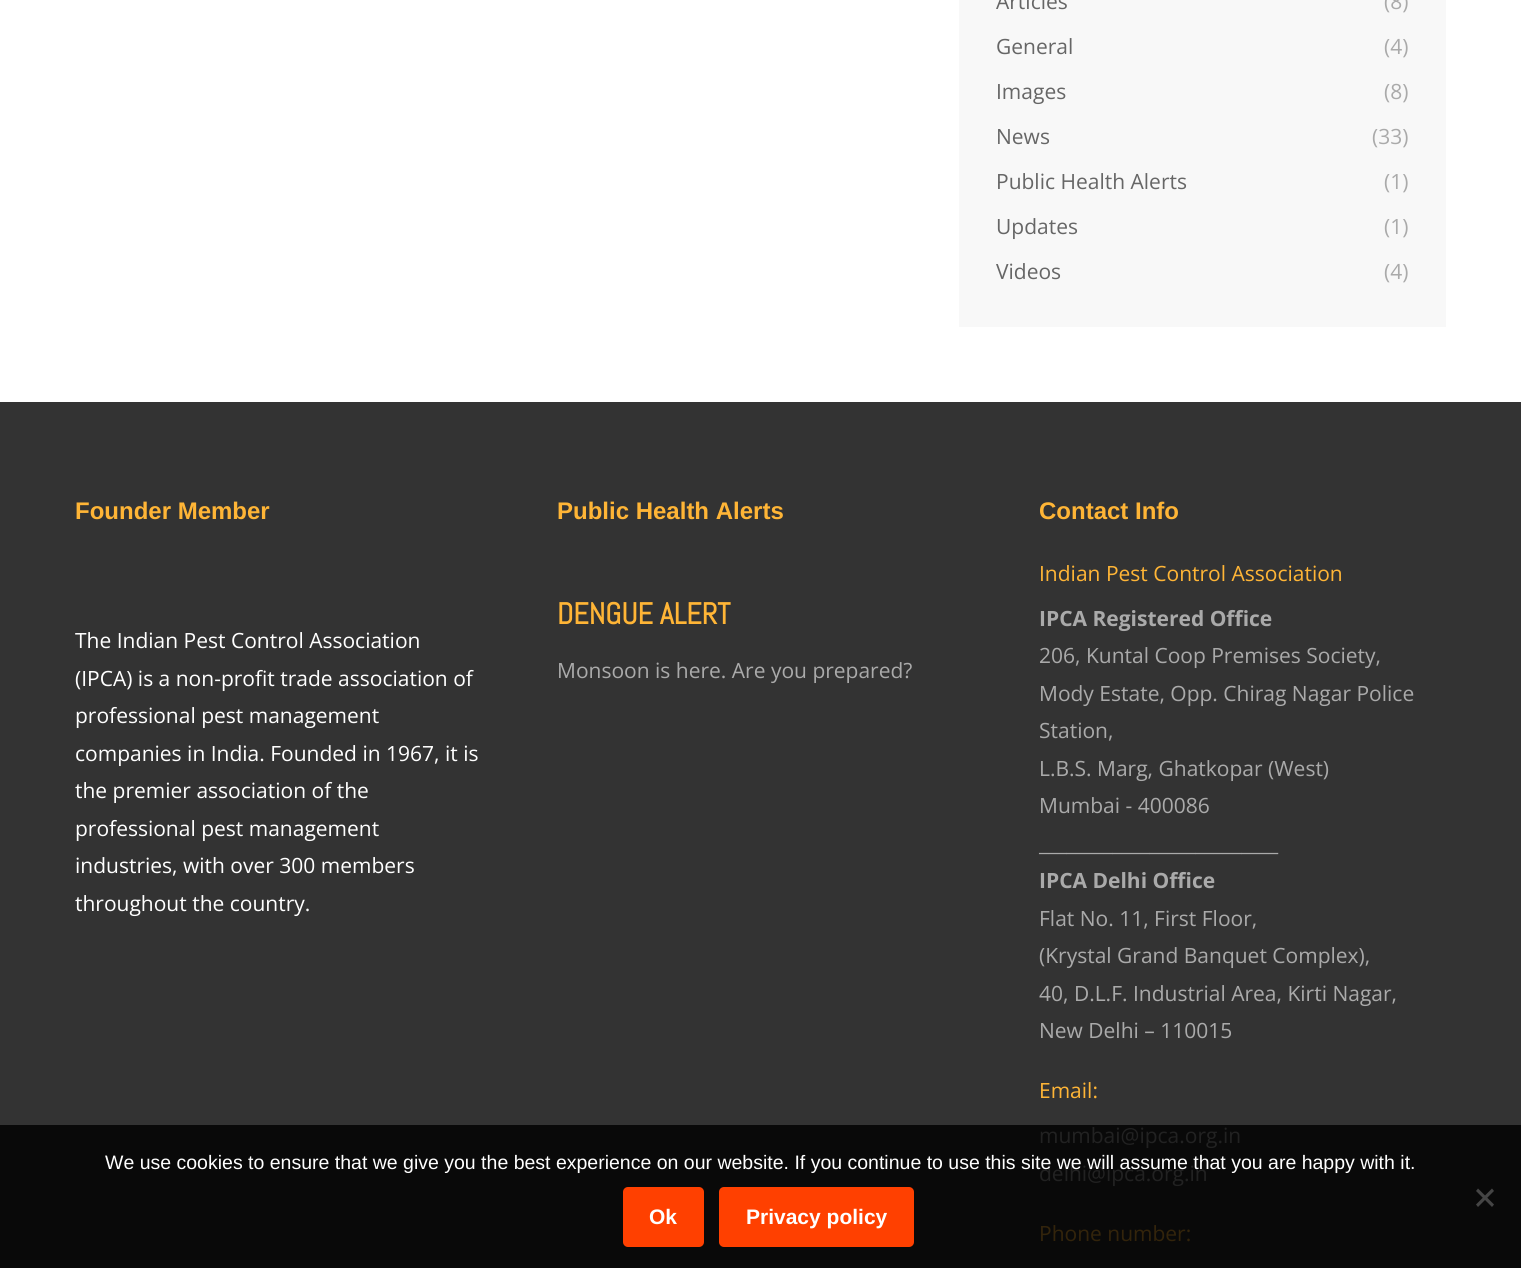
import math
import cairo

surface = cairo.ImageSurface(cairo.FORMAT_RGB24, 1521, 1268)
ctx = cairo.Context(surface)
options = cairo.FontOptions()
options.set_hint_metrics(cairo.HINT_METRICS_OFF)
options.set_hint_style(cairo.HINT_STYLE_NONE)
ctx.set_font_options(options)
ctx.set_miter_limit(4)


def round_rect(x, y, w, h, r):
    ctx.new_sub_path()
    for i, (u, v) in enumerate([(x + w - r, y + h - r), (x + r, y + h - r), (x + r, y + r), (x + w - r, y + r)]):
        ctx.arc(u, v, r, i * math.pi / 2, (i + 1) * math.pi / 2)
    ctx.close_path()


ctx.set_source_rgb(1, 1, 1)
ctx.paint()
ctx.set_source_rgb(0.969, 0.969, 0.969)
ctx.rectangle(959, 0, 487, 327)
ctx.fill()
ctx.select_font_face("Open Sans")
ctx.set_font_size(21)
ctx.set_source_rgb(0.4, 0.4, 0.4)
ctx.move_to(996, 9)
ctx.show_text("Articles")
ctx.set_source_rgb(0.667, 0.667, 0.667)
ctx.move_to(1384, 9)
ctx.show_text("(8)")
ctx.set_source_rgb(0.4, 0.4, 0.4)
ctx.move_to(996, 54)
ctx.show_text("General")
ctx.set_source_rgb(0.667, 0.667, 0.667)
ctx.move_to(1384, 54)
ctx.show_text("(4)")
ctx.set_source_rgb(0.4, 0.4, 0.4)
ctx.move_to(996, 99)
ctx.show_text("Images")
ctx.set_source_rgb(0.667, 0.667, 0.667)
ctx.move_to(1384, 99)
ctx.show_text("(8)")
ctx.set_source_rgb(0.4, 0.4, 0.4)
ctx.move_to(996, 144)
ctx.show_text("News")
ctx.set_source_rgb(0.667, 0.667, 0.667)
ctx.move_to(1372, 144)
ctx.show_text("(33)")
ctx.set_source_rgb(0.4, 0.4, 0.4)
ctx.move_to(996, 189)
ctx.show_text("Public Health Alerts")
ctx.set_source_rgb(0.667, 0.667, 0.667)
ctx.move_to(1384, 189)
ctx.show_text("(1)")
ctx.set_source_rgb(0.4, 0.4, 0.4)
ctx.move_to(996, 234)
ctx.show_text("Updates")
ctx.set_source_rgb(0.667, 0.667, 0.667)
ctx.move_to(1384, 234)
ctx.show_text("(1)")
ctx.set_source_rgb(0.4, 0.4, 0.4)
ctx.move_to(996, 279)
ctx.show_text("Videos")
ctx.set_source_rgb(0.667, 0.667, 0.667)
ctx.move_to(1384, 279)
ctx.show_text("(4)")
ctx.set_source_rgb(0.2, 0.2, 0.2)
ctx.rectangle(0, 402, 1521, 723)
ctx.fill()
ctx.set_source_rgb(0.039, 0.039, 0.039)
ctx.rectangle(0, 1125, 1521, 143)
ctx.fill()
ctx.select_font_face("Liberation Sans", cairo.FONT_SLANT_NORMAL, cairo.FONT_WEIGHT_BOLD)
ctx.set_font_size(24)
ctx.set_source_rgb(1, 0.71, 0.212)
ctx.move_to(75, 519)
ctx.show_text("Founder Member")
ctx.select_font_face("Open Sans")
ctx.set_font_size(21)
ctx.set_source_rgb(1, 1, 1)
ctx.move_to(75, 648)
ctx.show_text("The Indian Pest Control Association")
ctx.move_to(75, 686)
ctx.show_text("(IPCA) is a non-profit trade association of")
ctx.move_to(75, 723)
ctx.show_text("professional pest management")
ctx.move_to(75, 761)
ctx.show_text("companies in India. Founded in 1967, it is")
ctx.move_to(75, 798)
ctx.show_text("the premier association of the")
ctx.move_to(75, 836)
ctx.show_text("professional pest management")
ctx.move_to(75, 873)
ctx.show_text("industries, with over 300 members")
ctx.move_to(75, 911)
ctx.show_text("throughout the country.")
ctx.select_font_face("Liberation Sans", cairo.FONT_SLANT_NORMAL, cairo.FONT_WEIGHT_BOLD)
ctx.set_font_size(24)
ctx.set_source_rgb(1, 0.71, 0.212)
ctx.move_to(557, 519)
ctx.show_text("Public Health Alerts")
ctx.select_font_face("Abel", cairo.FONT_SLANT_NORMAL, cairo.FONT_WEIGHT_BOLD)
ctx.set_font_size(30)
ctx.move_to(557, 624)
ctx.show_text("DENGUE ALERT")
ctx.select_font_face("Open Sans")
ctx.set_font_size(21)
ctx.set_source_rgb(0.667, 0.667, 0.667)
ctx.move_to(557, 678)
ctx.show_text("Monsoon is here. Are you prepared?")
ctx.select_font_face("Liberation Sans", cairo.FONT_SLANT_NORMAL, cairo.FONT_WEIGHT_BOLD)
ctx.set_font_size(24)
ctx.set_source_rgb(1, 0.71, 0.212)
ctx.move_to(1039, 519)
ctx.show_text("Contact Info")
ctx.select_font_face("Open Sans")
ctx.set_font_size(21)
ctx.move_to(1039, 581)
ctx.show_text("Indian Pest Control Association")
ctx.select_font_face("Open Sans", cairo.FONT_SLANT_NORMAL, cairo.FONT_WEIGHT_BOLD)
ctx.set_source_rgb(0.667, 0.667, 0.667)
ctx.move_to(1039, 626)
ctx.show_text("IPCA Registered Office")
ctx.select_font_face("Open Sans")
ctx.move_to(1039, 663)
ctx.show_text("206, Kuntal Coop Premises Society,")
ctx.move_to(1039, 701)
ctx.show_text("Mody Estate, Opp. Chirag Nagar Police")
ctx.move_to(1039, 738)
ctx.show_text("Station,")
ctx.move_to(1039, 776)
ctx.show_text("L.B.S. Marg, Ghatkopar (West)")
ctx.move_to(1039, 813)
ctx.show_text("Mumbai - 400086")
ctx.move_to(1039, 851)
ctx.show_text("__________________________")
ctx.select_font_face("Open Sans", cairo.FONT_SLANT_NORMAL, cairo.FONT_WEIGHT_BOLD)
ctx.move_to(1039, 888)
ctx.show_text("IPCA Delhi Office")
ctx.select_font_face("Open Sans")
ctx.move_to(1039, 926)
ctx.show_text("Flat No. 11, First Floor,")
ctx.move_to(1039, 963)
ctx.show_text("(Krystal Grand Banquet Complex),")
ctx.move_to(1039, 1001)
ctx.show_text("40, D.L.F. Industrial Area, Kirti Nagar,")
ctx.move_to(1039, 1038)
ctx.show_text("New Delhi – 110015")
ctx.set_source_rgb(1, 0.71, 0.212)
ctx.move_to(1039, 1098)
ctx.show_text("Email:")
ctx.set_source_rgb(0.133, 0.133, 0.133)
ctx.move_to(1039, 1143)
ctx.show_text("mumbai@ipca.org.in")
ctx.move_to(1039, 1181)
ctx.show_text("delhi@ipca.org.in")
ctx.set_source_rgb(0.2, 0.141, 0.043)
ctx.move_to(1039, 1241)
ctx.show_text("Phone number:")
ctx.select_font_face("Liberation Sans")
ctx.set_font_size(19.5)
ctx.set_source_rgb(1, 1, 1)
ctx.move_to(105, 1169)
ctx.show_text("We use cookies to ensure that we give you the best experience on our website. If you continue to use this site we will assume that you are happy with it.")
ctx.set_source_rgb(0.271, 0.271, 0.271)
ctx.new_path()
ctx.move_to(1492, 1188.5)
ctx.line_to(1494, 1191)
ctx.line_to(1478, 1207)
ctx.line_to(1476, 1204.5)
ctx.close_path()
ctx.fill()
ctx.new_path()
ctx.move_to(1476, 1191)
ctx.line_to(1478, 1188.5)
ctx.line_to(1494, 1204.5)
ctx.line_to(1492, 1207)
ctx.close_path()
ctx.fill()
ctx.set_source_rgb(1, 0.251, 0)
round_rect(623, 1187, 81, 60, 5)
ctx.fill()
ctx.select_font_face("Liberation Sans", cairo.FONT_SLANT_NORMAL, cairo.FONT_WEIGHT_BOLD)
ctx.set_font_size(21)
ctx.set_source_rgb(1, 1, 1)
ctx.move_to(649, 1224)
ctx.show_text("Ok")
ctx.set_source_rgb(1, 0.251, 0)
round_rect(719, 1187, 195, 60, 5)
ctx.fill()
ctx.set_source_rgb(1, 1, 1)
ctx.move_to(746, 1224)
ctx.show_text("Privacy policy")
surface.write_to_png("page.png")
